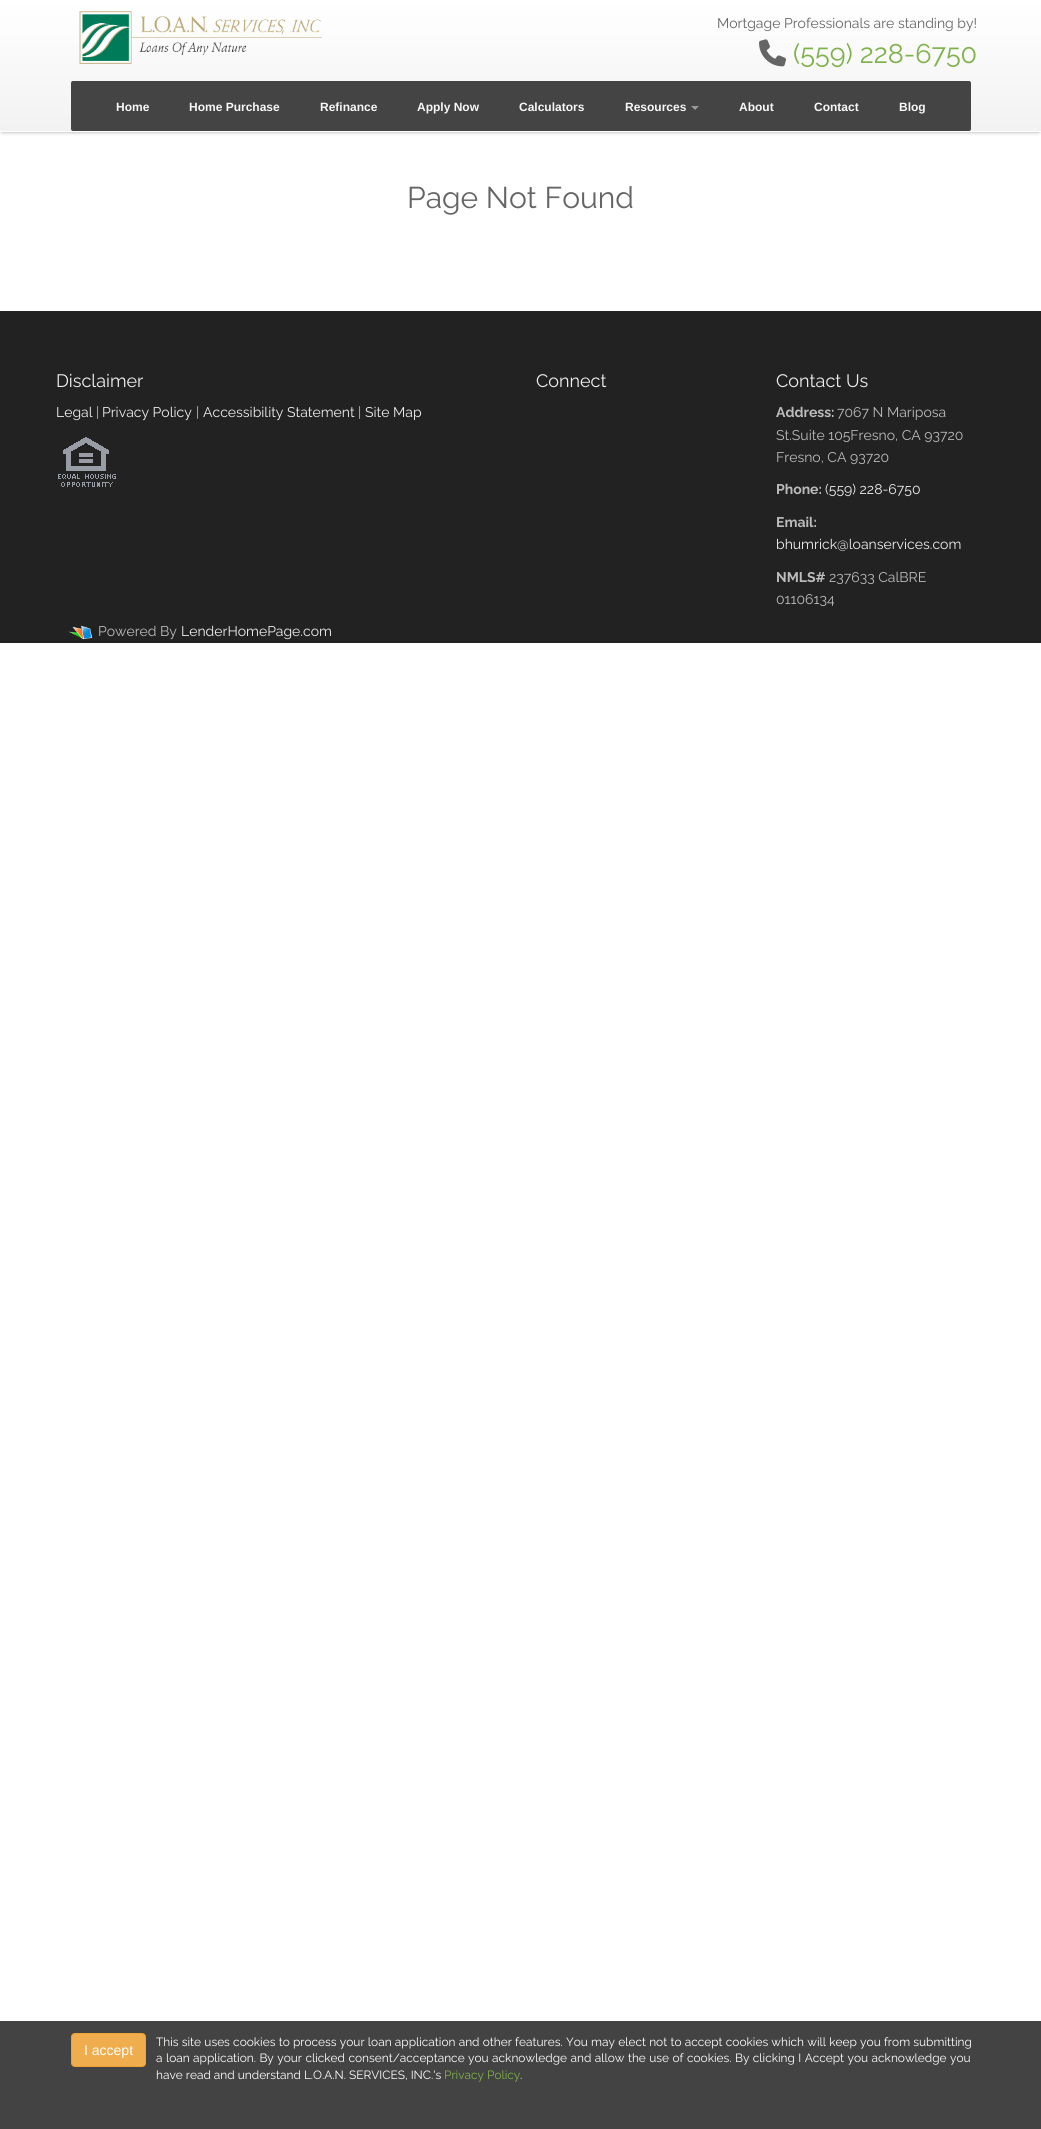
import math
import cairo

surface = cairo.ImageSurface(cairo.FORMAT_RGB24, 1041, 2129)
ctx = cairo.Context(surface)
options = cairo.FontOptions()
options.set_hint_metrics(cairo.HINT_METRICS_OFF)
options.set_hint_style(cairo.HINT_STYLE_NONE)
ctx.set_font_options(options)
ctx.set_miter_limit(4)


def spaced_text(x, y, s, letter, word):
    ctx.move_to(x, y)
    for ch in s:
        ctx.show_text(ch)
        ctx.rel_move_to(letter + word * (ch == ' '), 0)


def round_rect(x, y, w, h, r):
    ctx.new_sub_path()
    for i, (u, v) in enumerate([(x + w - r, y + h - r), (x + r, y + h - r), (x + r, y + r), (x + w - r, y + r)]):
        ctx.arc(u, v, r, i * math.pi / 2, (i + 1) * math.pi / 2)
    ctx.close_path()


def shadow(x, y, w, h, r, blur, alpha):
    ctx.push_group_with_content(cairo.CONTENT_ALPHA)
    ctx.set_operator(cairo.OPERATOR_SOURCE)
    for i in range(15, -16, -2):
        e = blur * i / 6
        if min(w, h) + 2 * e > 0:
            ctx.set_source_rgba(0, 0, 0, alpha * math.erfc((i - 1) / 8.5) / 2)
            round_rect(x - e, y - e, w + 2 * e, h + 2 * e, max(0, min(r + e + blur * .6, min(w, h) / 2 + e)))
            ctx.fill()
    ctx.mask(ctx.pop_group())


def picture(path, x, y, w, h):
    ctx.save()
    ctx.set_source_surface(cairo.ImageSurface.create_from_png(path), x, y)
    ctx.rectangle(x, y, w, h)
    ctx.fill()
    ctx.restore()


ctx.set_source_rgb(1, 1, 1)
ctx.paint()
ctx.set_source_rgb(0.639, 0.639, 0.639)
shadow(2, 4, 1037, 128, 0, 2, 1)
gradient = cairo.LinearGradient(521, 0, 521, 131)
gradient.add_color_stop_rgba(0, 1, 1, 1, 1)
gradient.add_color_stop_rgba(1, 0.949, 0.949, 0.949, 1)
ctx.set_source(gradient)
ctx.rectangle(0, 0, 1041, 131)
ctx.fill()
gradient = cairo.LinearGradient(521, 131, 521, 262)
gradient.add_color_stop_rgba(0, 1, 1, 1, 1)
gradient.add_color_stop_rgba(1, 0.949, 0.949, 0.949, 1)
ctx.set_source(gradient)
ctx.rectangle(0, 131, 1041, 1)
ctx.fill()
picture("img1.png", 79, 11, 244, 53)
ctx.select_font_face("Raleway")
ctx.set_font_size(14)
ctx.set_source_rgb(0.396, 0.396, 0.396)
ctx.move_to(717, 28)
ctx.show_text("Mortgage Professionals are standing by!")
picture("img2.png", 759, 39, 27, 28)
ctx.set_font_size(27)
ctx.set_source_rgb(0.494, 0.694, 0.29)
ctx.move_to(793, 63)
ctx.show_text("(559) 228-6750")
ctx.set_source_rgb(0.267, 0.267, 0.267)
round_rect(71, 81, 900, 50, 2)
ctx.fill()
ctx.select_font_face("Liberation Sans", cairo.FONT_SLANT_NORMAL, cairo.FONT_WEIGHT_BOLD)
ctx.set_font_size(12)
ctx.set_source_rgb(0.969, 0.969, 0.969)
ctx.move_to(116, 111)
ctx.show_text("Home")
ctx.move_to(189, 111)
ctx.show_text("Home Purchase")
ctx.move_to(320, 111)
ctx.show_text("Refinance")
ctx.move_to(417, 111)
ctx.show_text("Apply Now")
ctx.move_to(519, 111)
ctx.show_text("Calculators")
ctx.move_to(625, 111)
ctx.show_text("Resources")
ctx.set_source_rgb(0.6, 0.6, 0.6)
ctx.new_path()
ctx.move_to(691, 106)
ctx.line_to(699, 106)
ctx.line_to(695, 110)
ctx.close_path()
ctx.fill()
ctx.set_source_rgb(0.969, 0.969, 0.969)
ctx.move_to(739, 111)
ctx.show_text("About")
ctx.move_to(814, 111)
ctx.show_text("Contact")
ctx.move_to(899, 111)
ctx.show_text("Blog")
ctx.select_font_face("Raleway")
ctx.set_font_size(30)
ctx.set_source_rgb(0.396, 0.396, 0.396)
ctx.move_to(407, 208)
ctx.show_text("Page Not Found")
ctx.set_source_rgb(0.133, 0.133, 0.133)
ctx.rectangle(0, 311, 1041, 332)
ctx.fill()
ctx.set_font_size(18)
ctx.set_source_rgb(0.933, 0.933, 0.933)
ctx.move_to(56, 387)
ctx.show_text("Disclaimer")
ctx.set_font_size(14)
ctx.move_to(56, 417)
ctx.show_text("Legal")
ctx.set_source_rgb(0.733, 0.733, 0.733)
ctx.move_to(96, 417)
ctx.show_text("|")
ctx.set_source_rgb(0.933, 0.933, 0.933)
ctx.move_to(102, 417)
ctx.show_text("Privacy Policy")
ctx.set_source_rgb(0.733, 0.733, 0.733)
ctx.move_to(196, 417)
ctx.show_text("|")
ctx.set_source_rgb(0.933, 0.933, 0.933)
ctx.move_to(203, 417)
ctx.show_text("Accessibility Statement")
ctx.set_source_rgb(0.733, 0.733, 0.733)
ctx.move_to(358, 417)
ctx.show_text("|")
ctx.set_source_rgb(0.933, 0.933, 0.933)
ctx.move_to(365, 417)
ctx.show_text("Site Map")
picture("img3.png", 58, 437, 58, 50)
ctx.set_font_size(18)
ctx.move_to(536, 387)
ctx.show_text("Connect")
ctx.move_to(776, 387)
ctx.show_text("Contact Us")
ctx.select_font_face("Raleway", cairo.FONT_SLANT_NORMAL, cairo.FONT_WEIGHT_BOLD)
ctx.set_font_size(14)
ctx.set_source_rgb(0.733, 0.733, 0.733)
ctx.move_to(776, 417)
ctx.show_text("Address:")
ctx.select_font_face("Raleway")
ctx.move_to(837, 417)
ctx.show_text("7067 N Mariposa")
ctx.move_to(776, 440)
ctx.show_text("St.Suite 105Fresno, CA 93720")
ctx.move_to(776, 462)
ctx.show_text("Fresno, CA 93720")
ctx.select_font_face("Raleway", cairo.FONT_SLANT_NORMAL, cairo.FONT_WEIGHT_BOLD)
ctx.move_to(776, 494)
ctx.show_text("Phone:")
ctx.select_font_face("Raleway")
ctx.set_source_rgb(0.933, 0.933, 0.933)
ctx.move_to(825, 494)
ctx.show_text("(559) 228-6750")
ctx.select_font_face("Raleway", cairo.FONT_SLANT_NORMAL, cairo.FONT_WEIGHT_BOLD)
ctx.set_source_rgb(0.733, 0.733, 0.733)
ctx.move_to(776, 527)
ctx.show_text("Email:")
ctx.select_font_face("Raleway")
ctx.set_source_rgb(0.933, 0.933, 0.933)
ctx.move_to(776, 549)
ctx.show_text("bhumrick@loanservices.com")
ctx.select_font_face("Raleway", cairo.FONT_SLANT_NORMAL, cairo.FONT_WEIGHT_BOLD)
ctx.set_source_rgb(0.733, 0.733, 0.733)
ctx.move_to(776, 582)
ctx.show_text("NMLS#")
ctx.select_font_face("Raleway")
ctx.move_to(829, 582)
ctx.show_text("237633 CalBRE")
ctx.move_to(776, 604)
ctx.show_text("01106134")
picture("img4.png", 68, 625, 25, 15)
ctx.move_to(98, 636)
ctx.show_text("Powered By")
ctx.set_source_rgb(0.933, 0.933, 0.933)
ctx.move_to(181, 636)
ctx.show_text("LenderHomePage.com")
ctx.set_source_rgb(0.263, 0.263, 0.263)
ctx.rectangle(0, 2021, 1041, 108)
ctx.fill()
ctx.set_font_size(11.9)
ctx.set_source_rgb(1, 1, 1)
spaced_text(156, 2046, "This site uses cookies to process your loan application and other features. You may elect not to accept cookies which will keep you from submitting", 0, 0.2)
ctx.set_source_rgb(0.941, 0.678, 0.306)
round_rect(71.5, 2033.5, 74, 33, 3.5)
ctx.fill_preserve()
ctx.set_source_rgb(0.933, 0.635, 0.212)
ctx.set_line_width(1)
ctx.stroke()
ctx.select_font_face("Liberation Sans")
ctx.set_font_size(14)
ctx.set_source_rgb(1, 1, 1)
ctx.move_to(84, 2055)
ctx.show_text("I accept")
ctx.select_font_face("Raleway")
ctx.set_font_size(11.9)
spaced_text(156, 2062, "a loan application. By your clicked consent/acceptance you acknowledge and allow the use of cookies. By clicking I Accept you acknowledge you", 0, 0.4)
ctx.move_to(156, 2079)
ctx.show_text("have read and understand L.O.A.N. SERVICES, INC.'s")
ctx.set_source_rgb(0.494, 0.694, 0.29)
ctx.move_to(444, 2079)
ctx.show_text("Privacy Policy")
ctx.set_source_rgb(1, 1, 1)
ctx.move_to(520, 2079)
ctx.show_text(".")
surface.write_to_png("page.png")
